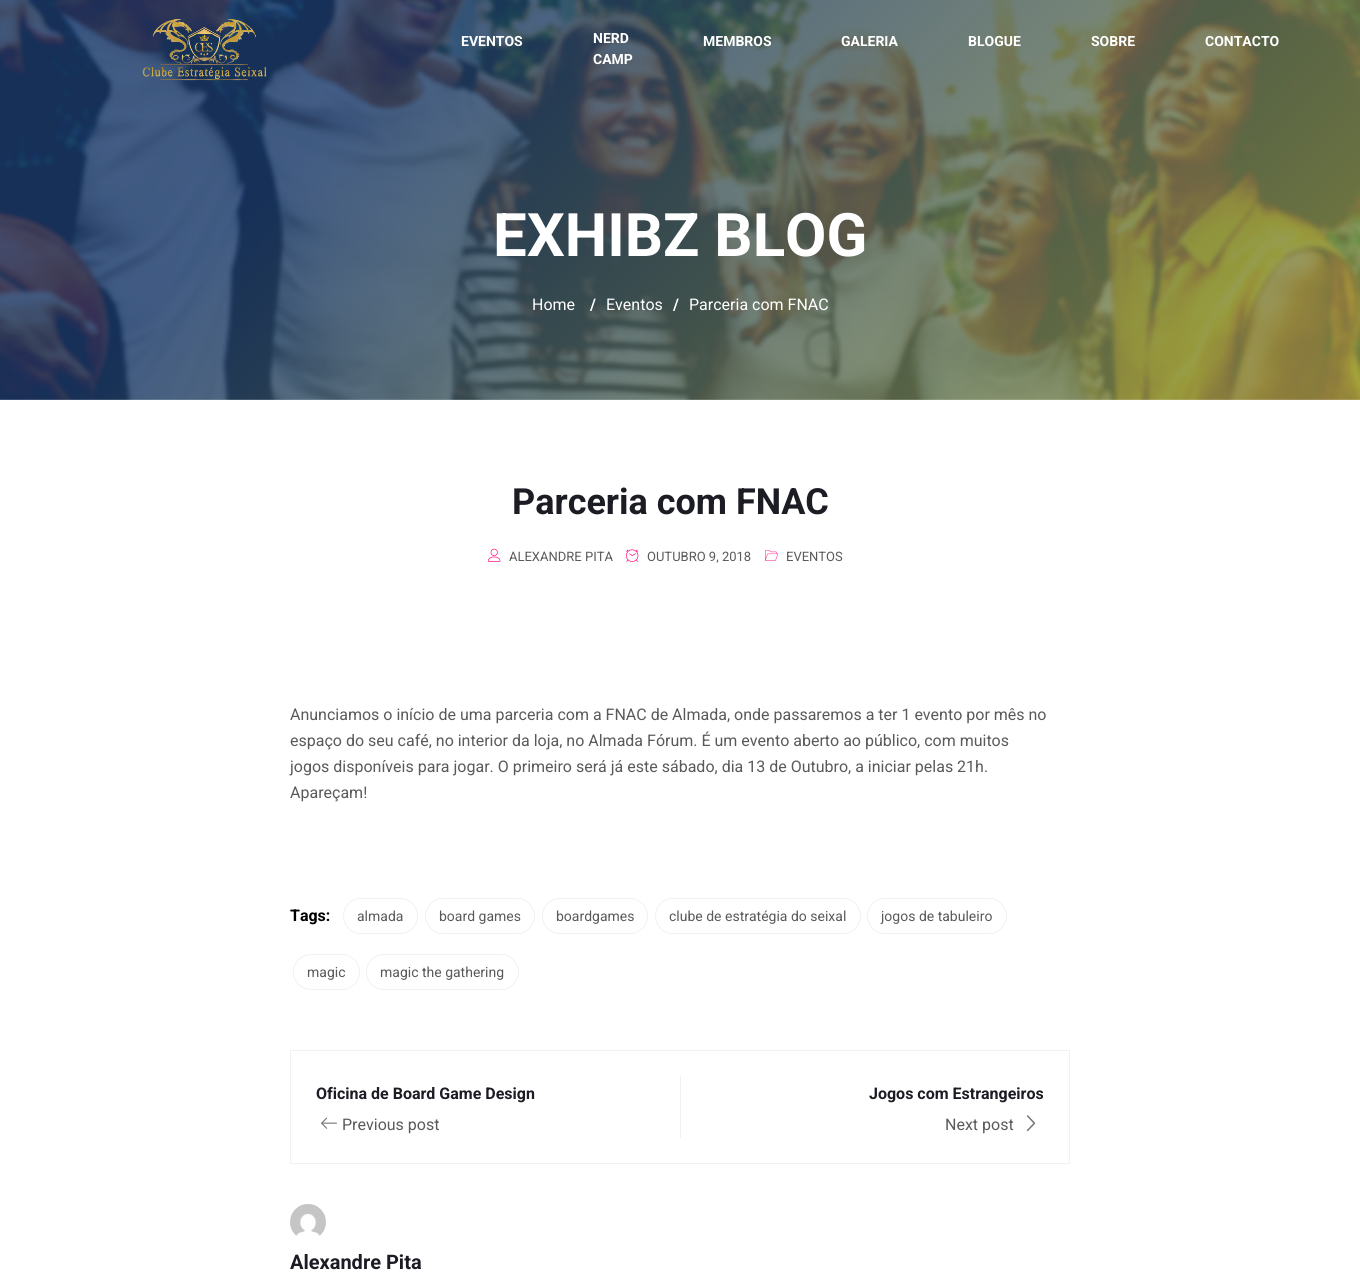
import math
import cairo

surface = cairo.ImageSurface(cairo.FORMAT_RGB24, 1360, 1279)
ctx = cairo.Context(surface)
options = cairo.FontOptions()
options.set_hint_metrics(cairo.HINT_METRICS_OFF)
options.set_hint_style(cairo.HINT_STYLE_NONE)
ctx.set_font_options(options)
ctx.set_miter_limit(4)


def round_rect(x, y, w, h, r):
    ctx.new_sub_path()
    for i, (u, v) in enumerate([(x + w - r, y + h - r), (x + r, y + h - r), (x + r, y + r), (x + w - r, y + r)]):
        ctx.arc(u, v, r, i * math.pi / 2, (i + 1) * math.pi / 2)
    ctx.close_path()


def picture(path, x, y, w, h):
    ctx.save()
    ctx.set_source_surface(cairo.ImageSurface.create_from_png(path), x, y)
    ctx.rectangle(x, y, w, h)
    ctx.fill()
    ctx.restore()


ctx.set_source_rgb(1, 1, 1)
ctx.paint()
picture("img2.png", 0, 0, 1360, 400)
picture("img1.png", 142, 19, 125, 62)
ctx.select_font_face("Roboto", cairo.FONT_SLANT_NORMAL, cairo.FONT_WEIGHT_BOLD)
ctx.set_font_size(14)
ctx.set_source_rgb(1, 1, 1)
ctx.move_to(461, 46)
ctx.show_text("EVENTOS")
ctx.move_to(593, 43)
ctx.show_text("NERD")
ctx.move_to(593, 64)
ctx.show_text("CAMP")
ctx.move_to(703, 46)
ctx.show_text("MEMBROS")
ctx.move_to(841, 46)
ctx.show_text("GALERIA")
ctx.move_to(968, 46)
ctx.show_text("BLOGUE")
ctx.move_to(1091, 46)
ctx.show_text("SOBRE")
ctx.move_to(1205, 46)
ctx.show_text("CONTACTO")
ctx.set_font_size(60)
ctx.move_to(493, 256)
ctx.show_text("EXHIBZ BLOG")
ctx.select_font_face("Roboto")
ctx.set_font_size(16)
ctx.move_to(532, 310)
ctx.show_text("Home")
ctx.select_font_face("Roboto", cairo.FONT_SLANT_NORMAL, cairo.FONT_WEIGHT_BOLD)
ctx.move_to(590, 310)
ctx.show_text("/")
ctx.select_font_face("Roboto")
ctx.move_to(606, 310)
ctx.show_text("Eventos")
ctx.select_font_face("Roboto", cairo.FONT_SLANT_NORMAL, cairo.FONT_WEIGHT_BOLD)
ctx.move_to(673, 310)
ctx.show_text("/")
ctx.select_font_face("Roboto")
ctx.move_to(689, 310)
ctx.show_text("Parceria com FNAC")
ctx.select_font_face("Roboto", cairo.FONT_SLANT_NORMAL, cairo.FONT_WEIGHT_BOLD)
ctx.set_font_size(36)
ctx.set_source_rgb(0.11, 0.11, 0.141)
ctx.move_to(512, 514)
ctx.show_text("Parceria com FNAC")
picture("img3.png", 488, 548, 13, 14)
ctx.select_font_face("Roboto")
ctx.set_font_size(13)
ctx.set_source_rgb(0.353, 0.353, 0.353)
ctx.move_to(509, 561)
ctx.show_text("ALEXANDRE PITA")
picture("img4.png", 626, 549, 13, 13)
ctx.move_to(647, 561)
ctx.show_text("OUTUBRO 9, 2018")
picture("img5.png", 765, 550, 13, 11)
ctx.move_to(786, 561)
ctx.show_text("EVENTOS")
ctx.set_font_size(16)
ctx.move_to(290, 720)
ctx.show_text("Anunciamos o início de uma parceria com a FNAC de Almada, onde passaremos a ter 1 evento por mês no")
ctx.move_to(290, 746)
ctx.show_text("espaço do seu café, no interior da loja, no Almada Fórum. É um evento aberto ao público, com muitos")
ctx.move_to(290, 772)
ctx.show_text("jogos disponíveis para jogar. O primeiro será já este sábado, dia 13 de Outubro, a iniciar pelas 21h.")
ctx.move_to(290, 798)
ctx.show_text("Apareçam!")
ctx.select_font_face("Roboto", cairo.FONT_SLANT_NORMAL, cairo.FONT_WEIGHT_BOLD)
ctx.set_source_rgb(0, 0, 0)
ctx.move_to(290, 921)
ctx.show_text("Tags:")
round_rect(343.5, 898.5, 74, 35, 17.5)
ctx.set_source_rgb(0.945, 0.945, 0.945)
ctx.set_line_width(1)
ctx.stroke()
ctx.select_font_face("Roboto")
ctx.set_font_size(14)
ctx.set_source_rgb(0.353, 0.353, 0.353)
ctx.move_to(357, 921)
ctx.show_text("almada")
round_rect(425.5, 898.5, 109, 35, 17.5)
ctx.set_source_rgb(0.945, 0.945, 0.945)
ctx.stroke()
ctx.set_source_rgb(0.353, 0.353, 0.353)
ctx.move_to(439, 921)
ctx.show_text("board games")
round_rect(542.5, 898.5, 105, 35, 17.5)
ctx.set_source_rgb(0.945, 0.945, 0.945)
ctx.stroke()
ctx.set_source_rgb(0.353, 0.353, 0.353)
ctx.move_to(556, 921)
ctx.show_text("boardgames")
round_rect(655.5, 898.5, 205, 35, 17.5)
ctx.set_source_rgb(0.945, 0.945, 0.945)
ctx.stroke()
ctx.set_source_rgb(0.353, 0.353, 0.353)
ctx.move_to(669, 921)
ctx.show_text("clube de estratégia do seixal")
round_rect(867.5, 898.5, 139, 35, 17.5)
ctx.set_source_rgb(0.945, 0.945, 0.945)
ctx.stroke()
ctx.set_source_rgb(0.353, 0.353, 0.353)
ctx.move_to(881, 921)
ctx.show_text("jogos de tabuleiro")
round_rect(293.5, 954.5, 66, 35, 17.5)
ctx.set_source_rgb(0.945, 0.945, 0.945)
ctx.stroke()
ctx.set_source_rgb(0.353, 0.353, 0.353)
ctx.move_to(307, 977)
ctx.show_text("magic")
round_rect(366.5, 954.5, 152, 35, 17.5)
ctx.set_source_rgb(0.945, 0.945, 0.945)
ctx.stroke()
ctx.set_source_rgb(0.353, 0.353, 0.353)
ctx.move_to(380, 977)
ctx.show_text("magic the gathering")
ctx.rectangle(290.5, 1050.5, 779, 113)
ctx.set_source_rgb(0.945, 0.945, 0.945)
ctx.stroke()
ctx.select_font_face("Roboto", cairo.FONT_SLANT_NORMAL, cairo.FONT_WEIGHT_BOLD)
ctx.set_font_size(16)
ctx.set_source_rgb(0.11, 0.11, 0.141)
ctx.move_to(316, 1099)
ctx.show_text("Oficina de Board Game Design")
picture("img6.png", 321, 1117, 16, 12)
ctx.select_font_face("Roboto")
ctx.set_source_rgb(0.353, 0.353, 0.353)
ctx.move_to(342, 1130)
ctx.show_text("Previous post")
ctx.set_source_rgb(0.945, 0.945, 0.945)
ctx.rectangle(680, 1076, 1, 62)
ctx.fill()
ctx.select_font_face("Roboto", cairo.FONT_SLANT_NORMAL, cairo.FONT_WEIGHT_BOLD)
ctx.set_source_rgb(0.11, 0.11, 0.141)
ctx.move_to(869, 1099)
ctx.show_text("Jogos com Estrangeiros")
ctx.select_font_face("Roboto")
ctx.set_source_rgb(0.353, 0.353, 0.353)
ctx.move_to(945, 1130)
ctx.show_text("Next post")
picture("img7.png", 1026, 1115, 10, 17)
picture("img8.png", 290, 1204, 36, 32)
ctx.select_font_face("Roboto", cairo.FONT_SLANT_NORMAL, cairo.FONT_WEIGHT_BOLD)
ctx.set_font_size(20)
ctx.set_source_rgb(0.11, 0.11, 0.141)
ctx.move_to(290, 1269)
ctx.show_text("Alexandre Pita")
surface.write_to_png("page.png")
